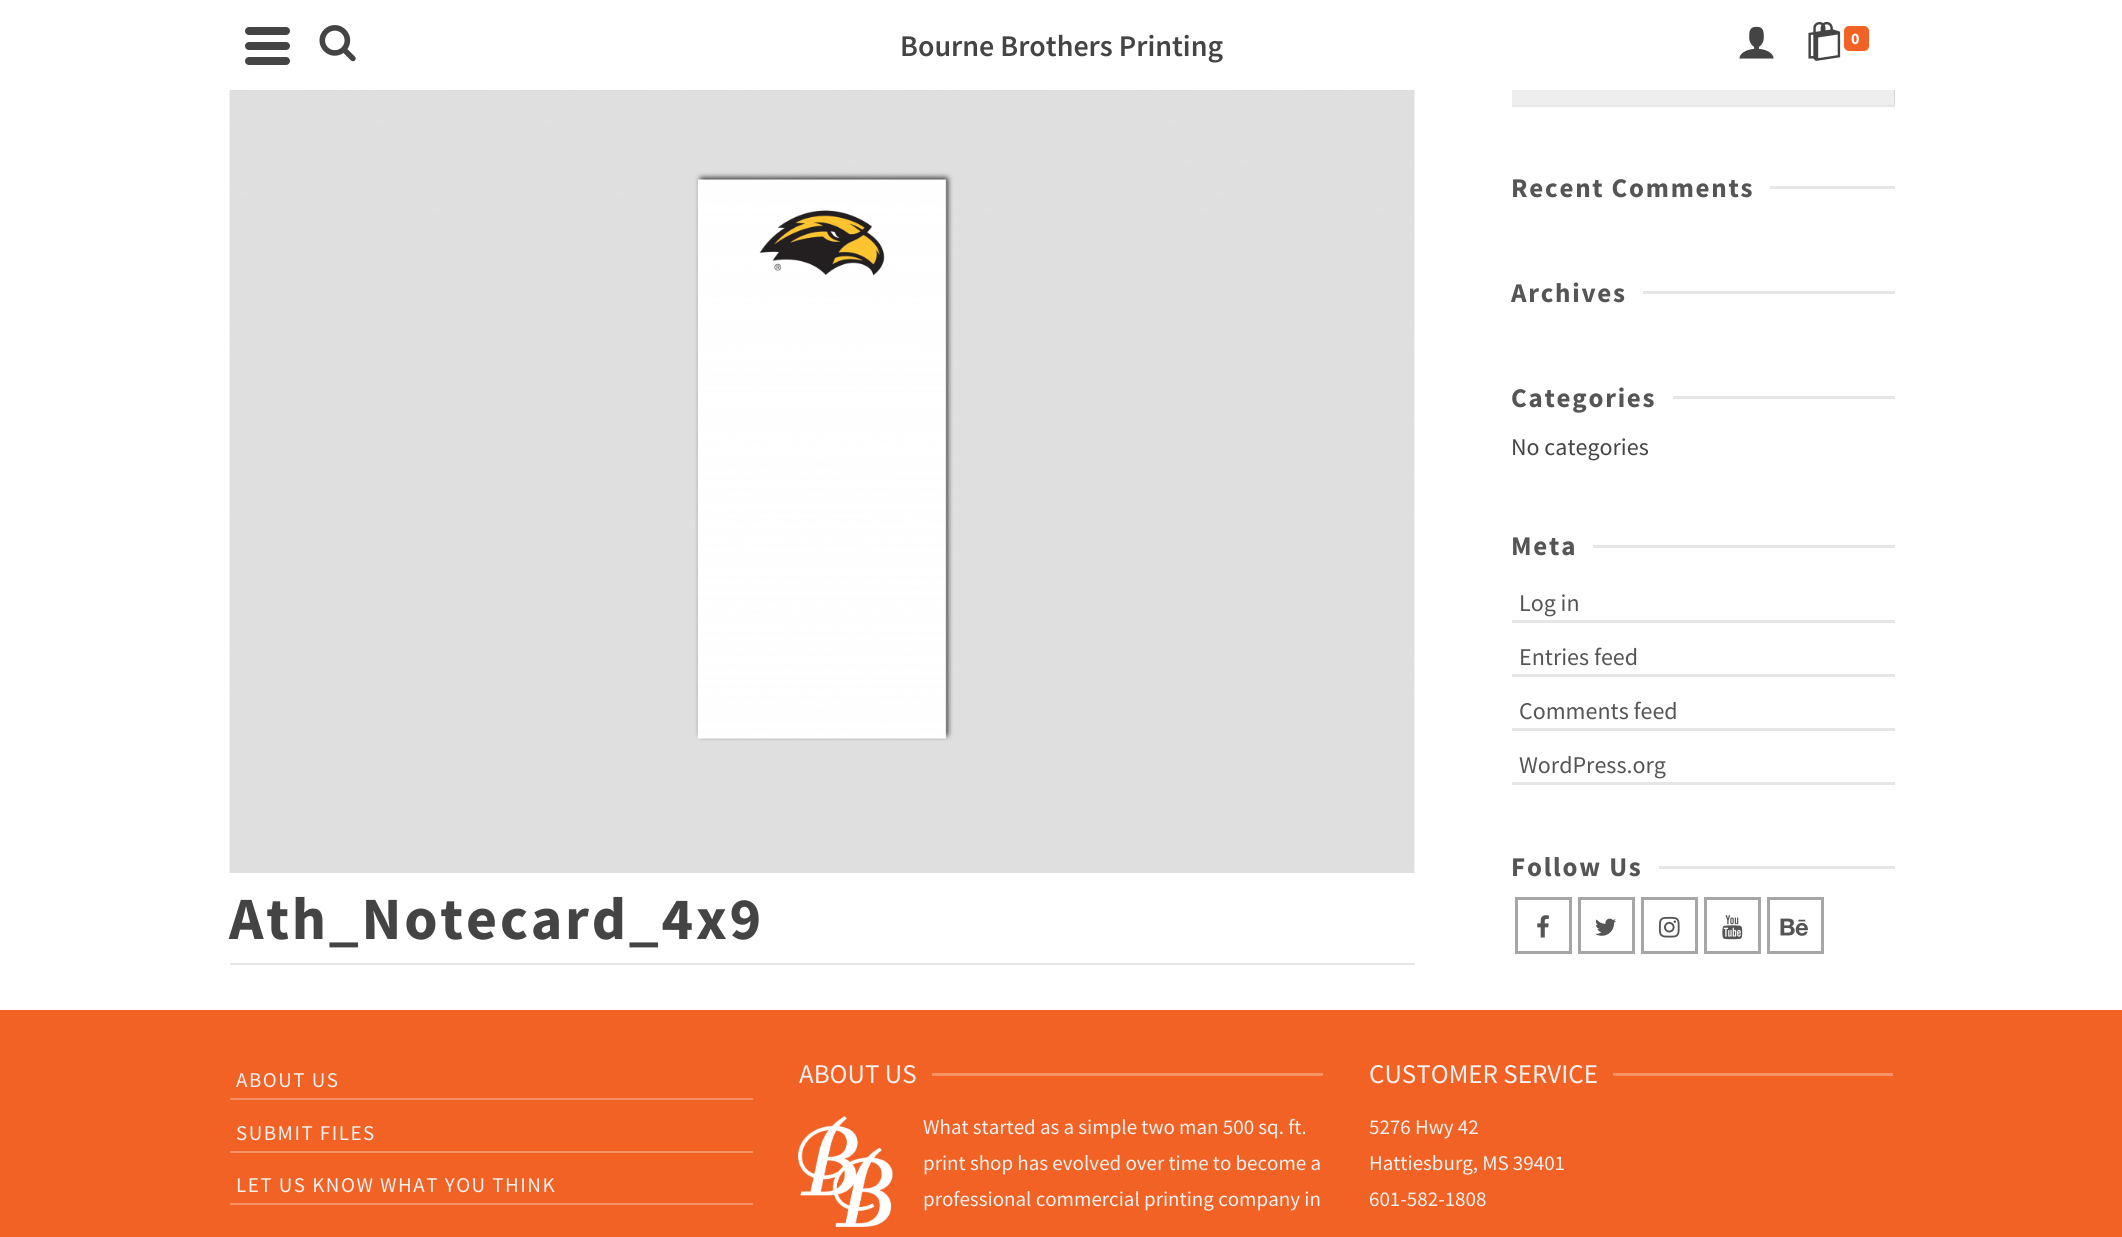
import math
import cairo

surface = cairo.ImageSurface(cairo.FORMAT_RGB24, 2122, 1237)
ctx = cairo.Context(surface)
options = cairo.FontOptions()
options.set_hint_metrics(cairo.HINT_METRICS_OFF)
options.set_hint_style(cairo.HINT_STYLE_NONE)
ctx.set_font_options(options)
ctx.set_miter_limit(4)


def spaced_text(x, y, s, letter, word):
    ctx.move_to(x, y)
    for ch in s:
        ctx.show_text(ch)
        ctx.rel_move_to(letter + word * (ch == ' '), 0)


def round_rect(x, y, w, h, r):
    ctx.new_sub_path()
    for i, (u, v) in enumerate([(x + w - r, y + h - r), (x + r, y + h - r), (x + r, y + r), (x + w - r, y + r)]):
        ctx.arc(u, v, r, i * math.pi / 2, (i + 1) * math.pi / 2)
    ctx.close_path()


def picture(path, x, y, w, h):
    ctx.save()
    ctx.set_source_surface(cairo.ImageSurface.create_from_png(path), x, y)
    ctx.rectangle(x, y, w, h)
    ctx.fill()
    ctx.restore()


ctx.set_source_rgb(1, 1, 1)
ctx.paint()
ctx.set_source_rgb(0.902, 0.902, 0.902)
ctx.new_path()
ctx.move_to(1512, 105)
ctx.line_to(1512, 107)
ctx.line_to(1895, 107)
ctx.line_to(1895, 47)
ctx.line_to(1894, 47)
ctx.line_to(1894, 105)
ctx.close_path()
ctx.fill()
ctx.set_source_rgb(1, 1, 1)
ctx.rectangle(1894, 47, 1, 43)
ctx.fill()
ctx.set_source_rgb(0.267, 0.267, 0.267)
round_rect(245, 27, 45, 8, 4)
ctx.fill()
round_rect(245, 42, 45, 8, 4)
ctx.fill()
round_rect(245, 57, 45, 8, 4)
ctx.fill()
picture("img1.png", 319, 25, 37, 37)
ctx.select_font_face("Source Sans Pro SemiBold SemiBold")
ctx.set_font_size(30)
ctx.move_to(900, 56)
ctx.show_text("Bourne Brothers Printing")
picture("img2.png", 1739, 26, 35, 33)
picture("img3.png", 1808, 21, 33, 40)
ctx.set_source_rgb(0.949, 0.384, 0.141)
round_rect(1844, 26, 25, 25, 5)
ctx.fill()
ctx.select_font_face("Source Sans Pro", cairo.FONT_SLANT_NORMAL, cairo.FONT_WEIGHT_BOLD)
ctx.set_font_size(16)
ctx.set_source_rgb(1, 1, 1)
ctx.move_to(1851, 44)
ctx.show_text("0")
ctx.set_source_rgba(0, 0, 0, 0.07)
ctx.rectangle(1512, 90, 383, 15)
ctx.fill()
ctx.set_font_size(27)
ctx.set_source_rgb(0.333, 0.333, 0.333)
spaced_text(1511, 197, "Recent Comments", 1.75, 0)
ctx.set_source_rgb(0.902, 0.902, 0.902)
ctx.rectangle(1770, 186, 125, 3)
ctx.fill()
ctx.set_source_rgb(0.333, 0.333, 0.333)
spaced_text(1511, 302, "Archives", 1.75, 0)
ctx.set_source_rgb(0.902, 0.902, 0.902)
ctx.rectangle(1643, 291, 252, 3)
ctx.fill()
ctx.set_source_rgb(0.333, 0.333, 0.333)
spaced_text(1511, 407, "Categories", 1.75, 0)
ctx.set_source_rgb(0.902, 0.902, 0.902)
ctx.rectangle(1673, 396, 222, 3)
ctx.fill()
ctx.select_font_face("Source Sans Pro")
ctx.set_font_size(24)
ctx.set_source_rgb(0.267, 0.267, 0.267)
ctx.move_to(1511, 455)
ctx.show_text("No categories")
ctx.select_font_face("Source Sans Pro", cairo.FONT_SLANT_NORMAL, cairo.FONT_WEIGHT_BOLD)
ctx.set_font_size(27)
ctx.set_source_rgb(0.333, 0.333, 0.333)
spaced_text(1511, 555, "Meta", 1.75, 0)
ctx.set_source_rgb(0.902, 0.902, 0.902)
ctx.rectangle(1593, 545, 302, 3)
ctx.fill()
ctx.rectangle(1512, 620, 383, 3)
ctx.fill()
ctx.select_font_face("Source Sans Pro")
ctx.set_font_size(24)
ctx.set_source_rgb(0.333, 0.333, 0.333)
ctx.move_to(1519, 611)
ctx.show_text("Log in")
ctx.set_source_rgb(0.902, 0.902, 0.902)
ctx.rectangle(1512, 674, 383, 3)
ctx.fill()
ctx.set_source_rgb(0.333, 0.333, 0.333)
ctx.move_to(1519, 665)
ctx.show_text("Entries feed")
ctx.set_source_rgb(0.902, 0.902, 0.902)
ctx.rectangle(1512, 728, 383, 3)
ctx.fill()
ctx.set_source_rgb(0.333, 0.333, 0.333)
ctx.move_to(1519, 719)
ctx.show_text("Comments feed")
ctx.set_source_rgb(0.902, 0.902, 0.902)
ctx.rectangle(1512, 782, 383, 3)
ctx.fill()
ctx.set_source_rgb(0.333, 0.333, 0.333)
ctx.move_to(1519, 773)
ctx.show_text("WordPress.org")
ctx.select_font_face("Source Sans Pro", cairo.FONT_SLANT_NORMAL, cairo.FONT_WEIGHT_BOLD)
ctx.set_font_size(27)
spaced_text(1511, 876, "Follow Us", 1.75, 0)
ctx.set_source_rgb(0.902, 0.902, 0.902)
ctx.rectangle(1659, 866, 236, 3)
ctx.fill()
ctx.rectangle(1516.5, 898.5, 54, 54)
ctx.set_source_rgb(0.651, 0.651, 0.651)
ctx.set_line_width(3)
ctx.stroke()
picture("img4.png", 1537, 915, 12, 23)
ctx.rectangle(1579.5, 898.5, 54, 54)
ctx.stroke()
picture("img5.png", 1595, 918, 21, 18)
ctx.rectangle(1642.5, 898.5, 54, 54)
ctx.stroke()
picture("img6.png", 1659, 916, 21, 22)
ctx.rectangle(1705.5, 898.5, 54, 54)
ctx.stroke()
picture("img7.png", 1722, 915, 21, 25)
ctx.rectangle(1768.5, 898.5, 54, 54)
ctx.stroke()
picture("img8.png", 1780, 918, 28, 18)
picture("img9.png", 229, 90, 1186, 783)
ctx.set_font_size(60)
ctx.set_source_rgb(0.267, 0.267, 0.267)
spaced_text(229, 939, "Ath_Notecard_4x9", 2.75, 0)
ctx.set_source_rgb(0.902, 0.902, 0.902)
ctx.rectangle(230, 963, 1185, 2)
ctx.fill()
ctx.set_source_rgb(0.949, 0.384, 0.141)
ctx.rectangle(0, 1010, 2122, 227)
ctx.fill()
ctx.set_source_rgb(0.965, 0.569, 0.4)
ctx.rectangle(230, 1098, 523, 2)
ctx.fill()
ctx.select_font_face("Source Sans Pro")
ctx.set_font_size(21)
ctx.set_source_rgb(0.949, 0.949, 0.949)
spaced_text(236, 1087, "ABOUT US", 1.5, 0)
ctx.set_source_rgb(0.965, 0.569, 0.4)
ctx.rectangle(230, 1151, 523, 2)
ctx.fill()
ctx.set_source_rgb(0.949, 0.949, 0.949)
spaced_text(236, 1140, "SUBMIT FILES", 1.5, 0)
ctx.set_source_rgb(0.965, 0.569, 0.4)
ctx.rectangle(230, 1203, 523, 2)
ctx.fill()
ctx.set_source_rgb(0.949, 0.949, 0.949)
spaced_text(236, 1192, "LET US KNOW WHAT YOU THINK", 1.5, 0)
ctx.set_font_size(27)
ctx.move_to(799, 1083)
ctx.show_text("ABOUT US")
ctx.set_source_rgb(0.965, 0.569, 0.4)
ctx.rectangle(932, 1073, 391, 3)
ctx.fill()
picture("img10.png", 798, 1116, 95, 111)
ctx.set_font_size(21)
ctx.set_source_rgb(0.949, 0.949, 0.949)
ctx.move_to(923, 1134)
ctx.show_text("What started as a simple two man 500 sq. ft.")
ctx.move_to(923, 1170)
ctx.show_text("print shop has evolved over time to become a")
ctx.move_to(923, 1206)
ctx.show_text("professional commercial printing company in")
ctx.set_font_size(27)
ctx.move_to(1369, 1083)
ctx.show_text("CUSTOMER SERVICE")
ctx.set_source_rgb(0.965, 0.569, 0.4)
ctx.rectangle(1613, 1073, 280, 3)
ctx.fill()
ctx.set_font_size(21)
ctx.set_source_rgb(0.949, 0.949, 0.949)
ctx.move_to(1369, 1134)
ctx.show_text("5276 Hwy 42")
ctx.move_to(1369, 1170)
ctx.show_text("Hattiesburg, MS 39401")
ctx.move_to(1369, 1206)
ctx.show_text("601-582-1808")
surface.write_to_png("page.png")
